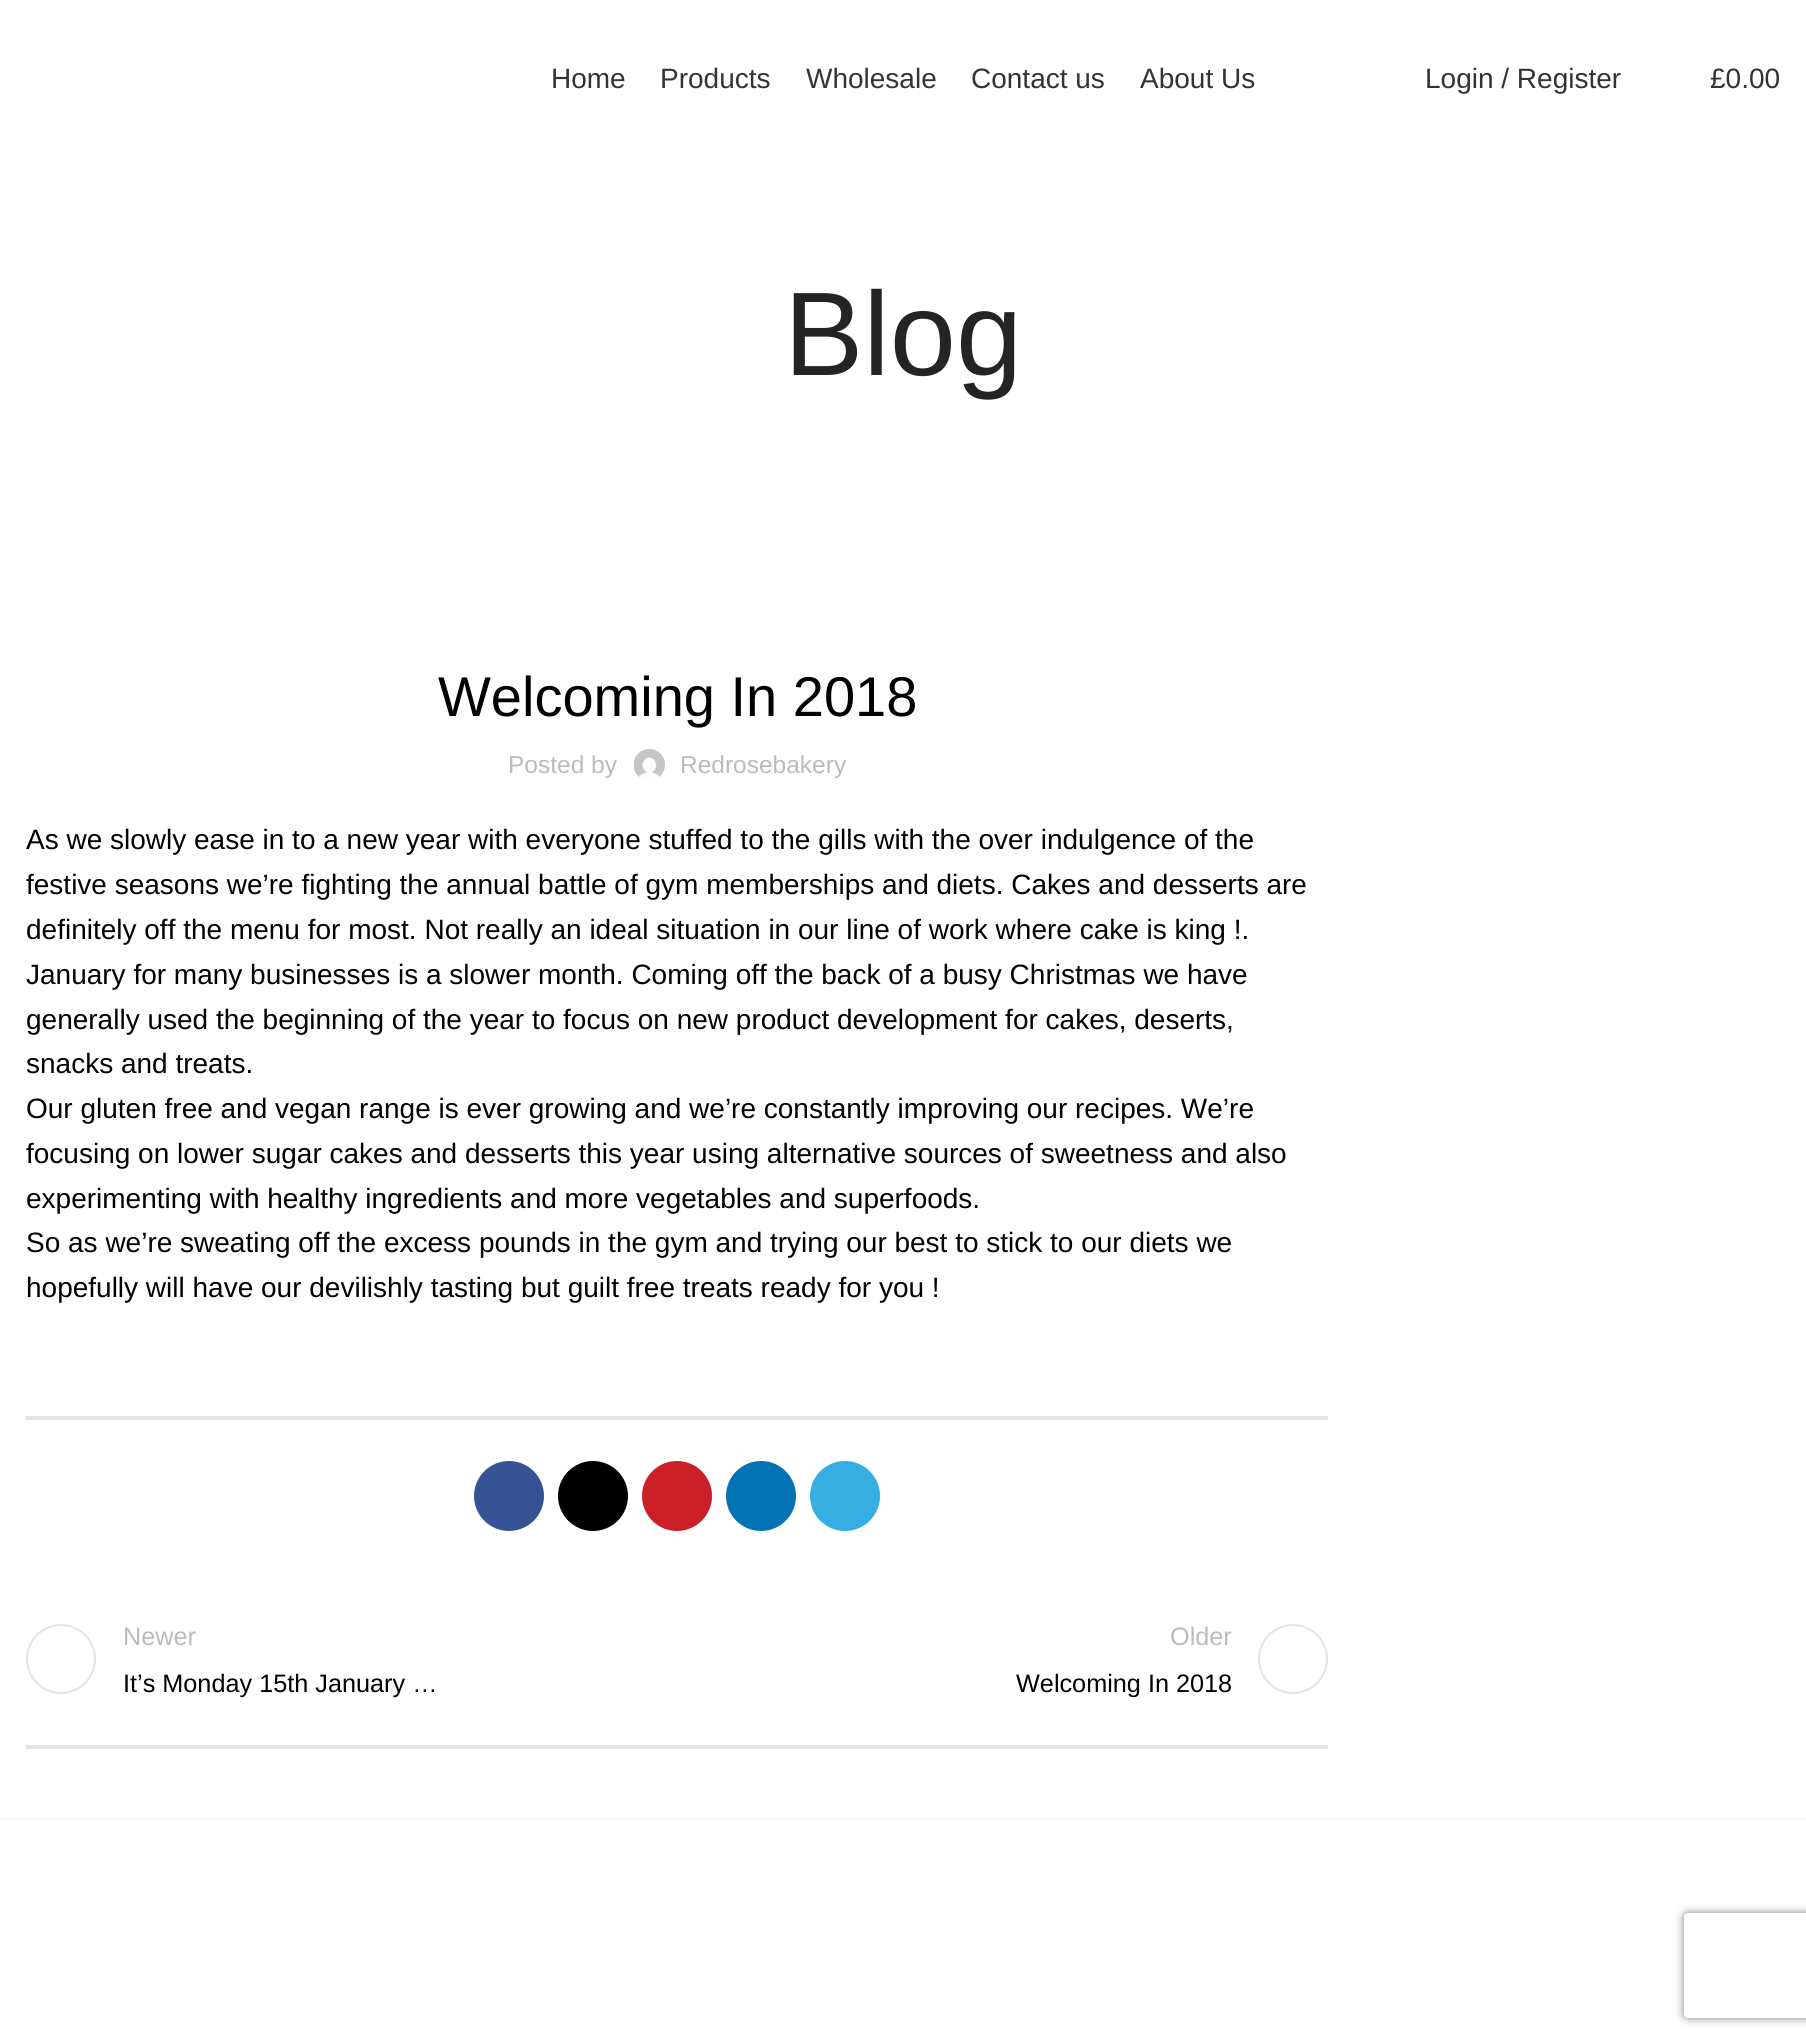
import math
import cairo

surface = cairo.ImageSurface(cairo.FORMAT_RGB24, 1806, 2041)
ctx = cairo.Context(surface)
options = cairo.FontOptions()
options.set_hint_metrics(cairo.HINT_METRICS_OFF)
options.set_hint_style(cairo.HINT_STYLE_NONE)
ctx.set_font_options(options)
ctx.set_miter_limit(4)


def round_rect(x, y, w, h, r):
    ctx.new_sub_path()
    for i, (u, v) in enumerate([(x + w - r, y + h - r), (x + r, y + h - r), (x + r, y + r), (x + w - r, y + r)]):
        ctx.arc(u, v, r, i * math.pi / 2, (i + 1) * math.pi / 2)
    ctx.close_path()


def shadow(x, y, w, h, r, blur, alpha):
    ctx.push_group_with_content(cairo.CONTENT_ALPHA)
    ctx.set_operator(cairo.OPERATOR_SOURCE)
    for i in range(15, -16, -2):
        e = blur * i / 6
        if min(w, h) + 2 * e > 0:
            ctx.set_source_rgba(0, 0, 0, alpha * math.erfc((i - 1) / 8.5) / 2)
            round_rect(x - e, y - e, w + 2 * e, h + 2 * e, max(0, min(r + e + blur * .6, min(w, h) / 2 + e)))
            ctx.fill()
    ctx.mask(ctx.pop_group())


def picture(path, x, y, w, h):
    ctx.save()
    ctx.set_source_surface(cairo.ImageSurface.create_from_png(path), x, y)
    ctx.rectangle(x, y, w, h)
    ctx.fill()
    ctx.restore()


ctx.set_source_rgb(1, 1, 1)
ctx.paint()
ctx.select_font_face("Liberation Sans")
ctx.set_font_size(28)
ctx.set_source_rgb(0.2, 0.2, 0.2)
ctx.move_to(551, 88)
ctx.show_text("Home")
ctx.move_to(660, 88)
ctx.show_text("Products")
ctx.move_to(806, 88)
ctx.show_text("Wholesale")
ctx.move_to(971, 88)
ctx.show_text("Contact us")
ctx.move_to(1140, 88)
ctx.show_text("About Us")
ctx.move_to(1425, 88)
ctx.show_text("Login / Register")
ctx.move_to(1710, 88)
ctx.show_text("£0.00")
ctx.set_font_size(119)
ctx.set_source_rgb(0.141, 0.141, 0.141)
ctx.move_to(784, 375)
ctx.show_text("Blog")
ctx.set_font_size(56)
ctx.set_source_rgb(0, 0, 0)
ctx.move_to(438, 716)
ctx.show_text("Welcoming In 2018")
ctx.set_font_size(24.5)
ctx.set_source_rgb(0.733, 0.733, 0.733)
ctx.move_to(508, 773)
ctx.show_text("Posted by")
picture("img1.png", 633, 749, 32, 29)
ctx.move_to(680, 773)
ctx.show_text("Redrosebakery")
ctx.set_font_size(28)
ctx.set_source_rgb(0, 0, 0)
ctx.move_to(26, 849)
ctx.show_text("As we slowly ease in to a new year with everyone stuffed to the gills with the over indulgence of the")
ctx.move_to(26, 894)
ctx.show_text("festive seasons we’re fighting the annual battle of gym memberships and diets. Cakes and desserts are")
ctx.move_to(26, 939)
ctx.show_text("definitely off the menu for most. Not really an ideal situation in our line of work where cake is king !.")
ctx.move_to(26, 984)
ctx.show_text("January for many businesses is a slower month. Coming off the back of a busy Christmas we have")
ctx.move_to(26, 1029)
ctx.show_text("generally used the beginning of the year to focus on new product development for cakes, deserts,")
ctx.move_to(26, 1073)
ctx.show_text("snacks and treats.")
ctx.move_to(26, 1118)
ctx.show_text("Our gluten free and vegan range is ever growing and we’re constantly improving our recipes. We’re")
ctx.move_to(26, 1163)
ctx.show_text("focusing on lower sugar cakes and desserts this year using alternative sources of sweetness and also")
ctx.move_to(26, 1208)
ctx.show_text("experimenting with healthy ingredients and more vegetables and superfoods.")
ctx.move_to(26, 1252)
ctx.show_text("So as we’re sweating off the excess pounds in the gym and trying our best to stick to our diets we")
ctx.move_to(26, 1297)
ctx.show_text("hopefully will have our devilishly tasting but guilt free treats ready for you !")
ctx.set_source_rgb(0.894, 0.894, 0.894)
ctx.rectangle(26, 1416, 1302, 4)
ctx.fill()
ctx.set_source_rgb(0.212, 0.329, 0.576)
ctx.arc(509, 1496, 35, 0, 2 * math.pi)
ctx.fill()
ctx.set_source_rgb(0, 0, 0)
ctx.arc(593, 1496, 35, 0, 2 * math.pi)
ctx.fill()
ctx.set_source_rgb(0.796, 0.125, 0.153)
ctx.arc(677, 1496, 35, 0, 2 * math.pi)
ctx.fill()
ctx.set_source_rgb(0.008, 0.455, 0.702)
ctx.arc(761, 1496, 35, 0, 2 * math.pi)
ctx.fill()
ctx.set_source_rgb(0.216, 0.682, 0.886)
ctx.arc(845, 1496, 35, 0, 2 * math.pi)
ctx.fill()
ctx.set_source_rgb(0.894, 0.894, 0.894)
ctx.rectangle(26, 1745, 1302, 4)
ctx.fill()
ctx.arc(61, 1659, 34, 0, 2 * math.pi)
ctx.stroke()
ctx.set_font_size(25.25)
ctx.set_source_rgb(0.733, 0.733, 0.733)
ctx.move_to(123, 1645)
ctx.show_text("Newer")
ctx.set_source_rgb(0, 0, 0)
ctx.move_to(123, 1692)
ctx.show_text("It’s Monday 15th January …")
ctx.set_source_rgb(0.733, 0.733, 0.733)
ctx.move_to(1170, 1645)
ctx.show_text("Older")
ctx.new_path()
ctx.arc(1293, 1659, 34, 0, 2 * math.pi)
ctx.set_source_rgb(0.894, 0.894, 0.894)
ctx.stroke()
ctx.set_source_rgb(0, 0, 0)
ctx.move_to(1016, 1692)
ctx.show_text("Welcoming In 2018")
ctx.set_source_rgb(0.976, 0.976, 0.976)
ctx.rectangle(0, 1818, 1806, 2)
ctx.fill()
ctx.save()
ctx.set_fill_rule(cairo.FILL_RULE_EVEN_ODD)
ctx.new_path()
ctx.move_to(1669, 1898)
ctx.line_to(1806, 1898)
ctx.line_to(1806, 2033)
ctx.line_to(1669, 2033)
ctx.close_path()
ctx.move_to(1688, 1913)
ctx.line_to(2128, 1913)
ctx.curve_to(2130, 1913, 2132, 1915, 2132, 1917)
ctx.line_to(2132, 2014)
ctx.curve_to(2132, 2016, 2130, 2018, 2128, 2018)
ctx.line_to(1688, 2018)
ctx.curve_to(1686, 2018, 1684, 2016, 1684, 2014)
ctx.line_to(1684, 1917)
ctx.curve_to(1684, 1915, 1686, 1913, 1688, 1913)
ctx.close_path()
ctx.clip()
ctx.set_source_rgb(0.502, 0.502, 0.502)
shadow(1684, 1913, 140, 105, 4, 4.5, 1)
ctx.restore()
surface.write_to_png("page.png")
